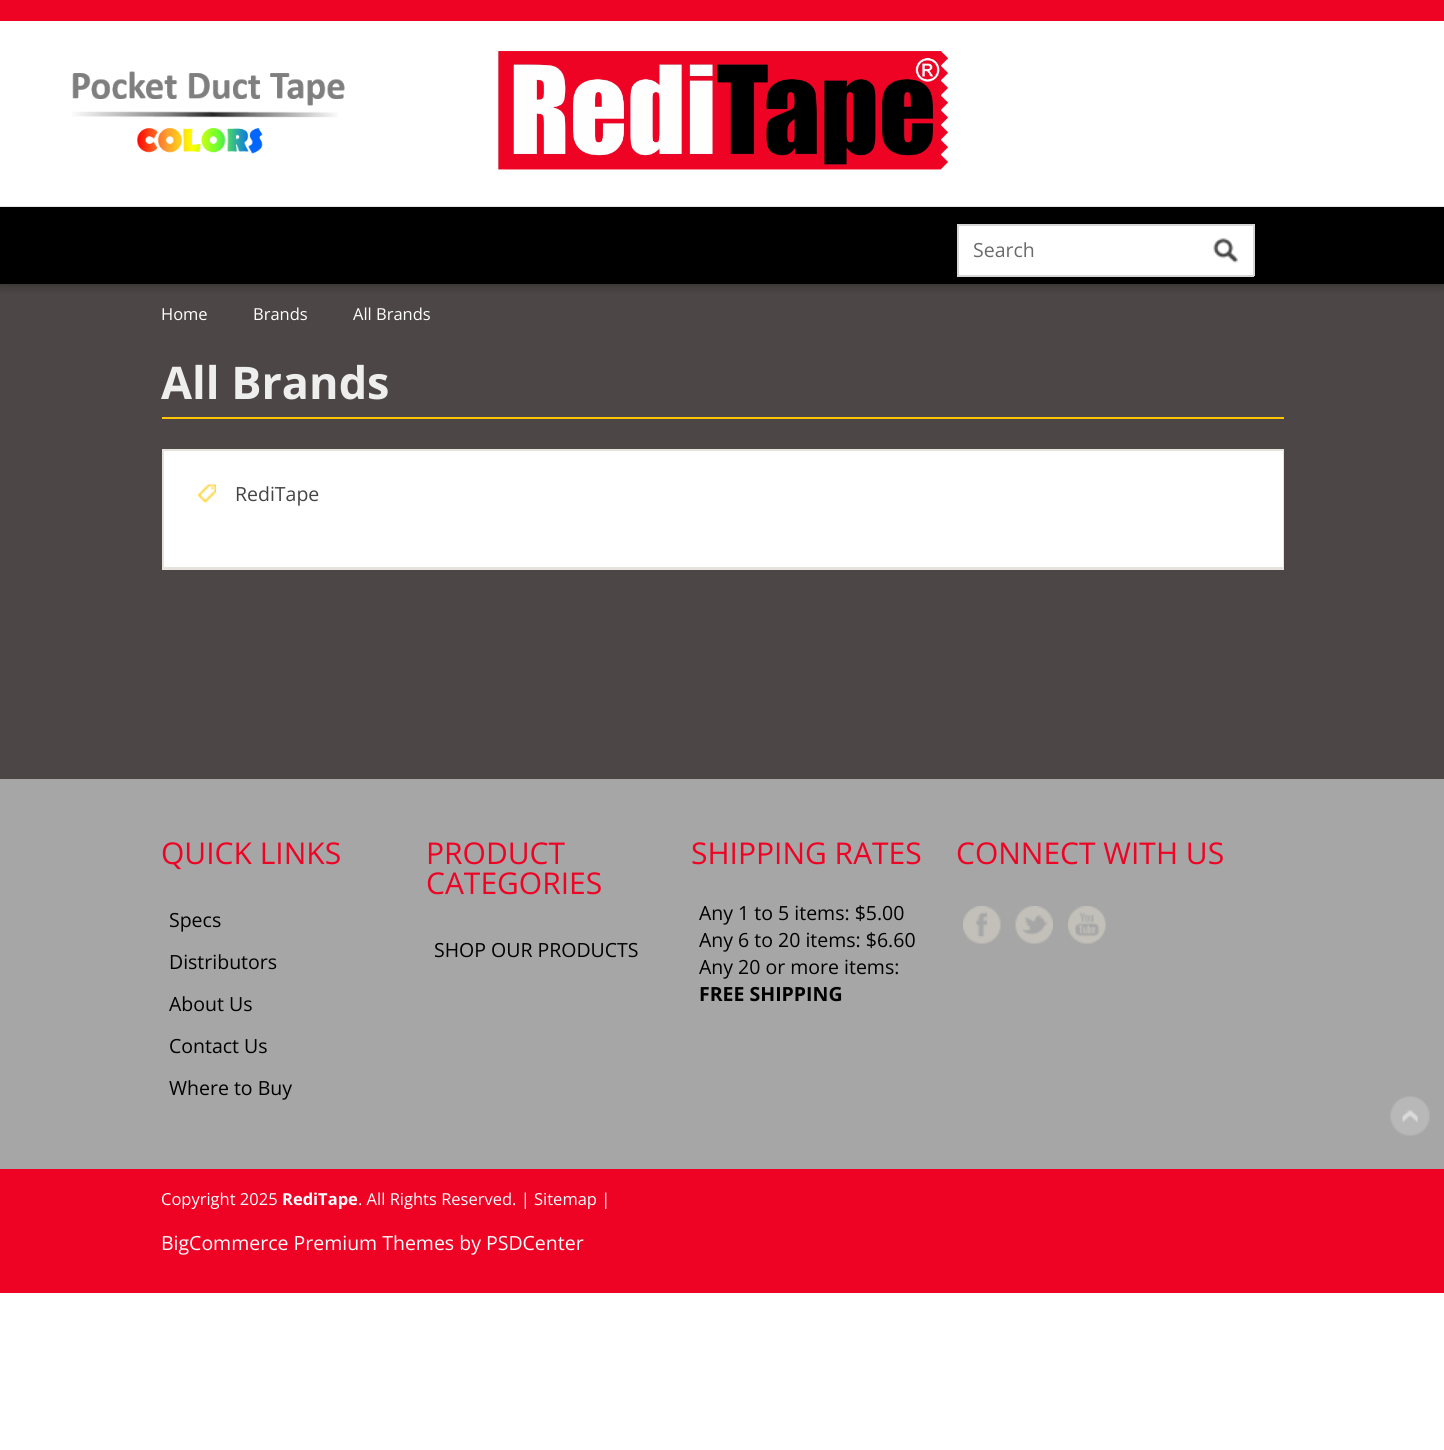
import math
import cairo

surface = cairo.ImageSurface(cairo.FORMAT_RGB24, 1444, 1450)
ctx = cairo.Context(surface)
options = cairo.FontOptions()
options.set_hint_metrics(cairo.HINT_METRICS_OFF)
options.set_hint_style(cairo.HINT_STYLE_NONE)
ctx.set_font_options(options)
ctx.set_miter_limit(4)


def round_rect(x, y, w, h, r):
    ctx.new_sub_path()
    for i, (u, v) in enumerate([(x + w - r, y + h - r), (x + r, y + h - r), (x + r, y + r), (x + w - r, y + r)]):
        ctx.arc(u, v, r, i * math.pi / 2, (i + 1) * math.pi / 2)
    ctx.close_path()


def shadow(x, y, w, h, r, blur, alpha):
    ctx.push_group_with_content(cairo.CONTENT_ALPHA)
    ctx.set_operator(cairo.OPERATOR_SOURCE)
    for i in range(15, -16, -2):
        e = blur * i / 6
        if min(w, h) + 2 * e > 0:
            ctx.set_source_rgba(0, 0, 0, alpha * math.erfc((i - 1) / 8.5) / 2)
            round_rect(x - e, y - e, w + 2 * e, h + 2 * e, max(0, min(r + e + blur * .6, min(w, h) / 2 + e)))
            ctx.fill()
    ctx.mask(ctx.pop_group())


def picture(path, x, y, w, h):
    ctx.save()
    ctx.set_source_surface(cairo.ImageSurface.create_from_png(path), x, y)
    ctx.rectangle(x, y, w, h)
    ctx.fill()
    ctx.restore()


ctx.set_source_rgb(1, 1, 1)
ctx.paint()
ctx.set_source_rgb(0.298, 0.275, 0.275)
ctx.rectangle(0, 284, 1444, 495)
ctx.fill()
ctx.save()
ctx.rectangle(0, 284, 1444, 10)
ctx.clip()
ctx.set_source_rgb(0, 0, 0)
shadow(0, 0, 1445, 284, 0, 6, 0.4)
ctx.restore()
ctx.set_source_rgb(0.937, 0.012, 0.141)
ctx.rectangle(0, 0, 1444, 21)
ctx.fill()
ctx.set_source_rgb(0, 0, 0)
ctx.rectangle(0, 207, 1444, 77)
ctx.fill()
picture("img1.png", 72, 71, 273, 83)
ctx.set_source_rgb(0.898, 0.898, 0.898)
ctx.rectangle(0, 206, 1444, 1)
ctx.fill()
picture("img2.png", 498, 51, 450, 119)
ctx.set_source_rgb(1, 1, 1)
ctx.rectangle(959, 226, 294, 49)
ctx.fill()
ctx.set_source_rgb(0.839, 0.839, 0.839)
ctx.rectangle(957, 224, 297, 2)
ctx.fill()
ctx.rectangle(957, 275, 240, 2)
ctx.fill()
ctx.rectangle(957, 224, 2, 52)
ctx.fill()
ctx.select_font_face("Open Sans")
ctx.set_font_size(19.5)
ctx.set_source_rgb(0.416, 0.416, 0.416)
ctx.move_to(973, 257)
ctx.show_text("Search")
picture("img3.png", 1213, 238, 25, 25)
ctx.set_source_rgb(0.839, 0.839, 0.839)
ctx.rectangle(1253, 224, 2, 52)
ctx.fill()
ctx.rectangle(1197, 275, 57, 2)
ctx.fill()
ctx.set_font_size(16.5)
ctx.set_source_rgb(1, 1, 1)
ctx.move_to(161, 320)
ctx.show_text("Home")
ctx.move_to(253, 320)
ctx.show_text("Brands")
ctx.move_to(353, 320)
ctx.show_text("All Brands")
ctx.set_source_rgb(1, 0.776, 0)
ctx.rectangle(162, 417, 1122, 2)
ctx.fill()
ctx.select_font_face("Open Sans", cairo.FONT_SLANT_NORMAL, cairo.FONT_WEIGHT_BOLD)
ctx.set_font_size(45)
ctx.set_source_rgb(0.933, 0.933, 0.933)
ctx.move_to(161, 399)
ctx.show_text("All Brands")
ctx.set_source_rgb(1, 1, 1)
ctx.rectangle(164, 451, 1119, 116)
ctx.fill()
ctx.set_source_rgb(0.898, 0.89, 0.859)
ctx.rectangle(162, 449, 1122, 2)
ctx.fill()
ctx.rectangle(1283, 449, 1, 121)
ctx.fill()
ctx.rectangle(162, 567, 1122, 3)
ctx.fill()
ctx.rectangle(162, 449, 2, 121)
ctx.fill()
picture("img4.png", 198, 484, 18, 19)
ctx.select_font_face("Open Sans")
ctx.set_font_size(19.5)
ctx.set_source_rgb(0.267, 0.267, 0.267)
ctx.move_to(235, 501)
ctx.show_text("RediTape")
ctx.set_source_rgb(0.651, 0.651, 0.651)
ctx.rectangle(0, 779, 1444, 390)
ctx.fill()
ctx.set_font_size(30)
ctx.set_source_rgb(0.937, 0.012, 0.141)
ctx.move_to(161, 864)
ctx.show_text("QUICK LINKS")
ctx.set_font_size(19.5)
ctx.set_source_rgb(0, 0, 0)
ctx.move_to(169, 927)
ctx.show_text("Specs")
ctx.move_to(169, 969)
ctx.show_text("Distributors")
ctx.move_to(169, 1011)
ctx.show_text("About Us")
ctx.move_to(169, 1053)
ctx.show_text("Contact Us")
ctx.move_to(169, 1095)
ctx.show_text("Where to Buy")
ctx.set_font_size(30)
ctx.set_source_rgb(0.937, 0.012, 0.141)
ctx.move_to(426, 864)
ctx.show_text("PRODUCT")
ctx.move_to(426, 894)
ctx.show_text("CATEGORIES")
ctx.set_font_size(19.5)
ctx.set_source_rgb(0, 0, 0)
ctx.move_to(434, 957)
ctx.show_text("SHOP OUR PRODUCTS")
ctx.set_font_size(30)
ctx.set_source_rgb(0.937, 0.012, 0.141)
ctx.move_to(691, 864)
ctx.show_text("SHIPPING RATES")
ctx.set_font_size(19.5)
ctx.set_source_rgb(0, 0, 0)
ctx.move_to(699, 920)
ctx.show_text("Any 1 to 5 items: $5.00")
ctx.move_to(699, 947)
ctx.show_text("Any 6 to 20 items: $6.60")
ctx.move_to(699, 974)
ctx.show_text("Any 20 or more items:")
ctx.select_font_face("Open Sans", cairo.FONT_SLANT_NORMAL, cairo.FONT_WEIGHT_BOLD)
ctx.move_to(699, 1001)
ctx.show_text("FREE SHIPPING")
ctx.select_font_face("Open Sans")
ctx.set_font_size(30)
ctx.set_source_rgb(0.937, 0.012, 0.141)
ctx.move_to(956, 864)
ctx.show_text("CONNECT WITH US")
picture("img5.png", 963, 906, 38, 38)
picture("img6.png", 1015, 906, 38, 38)
picture("img7.png", 1068, 906, 38, 38)
ctx.rectangle(0, 1169, 1444, 124)
ctx.fill()
picture("img8.png", 1390, 1096, 40, 40)
ctx.set_font_size(16.5)
ctx.set_source_rgb(1, 1, 1)
ctx.move_to(161, 1205)
ctx.show_text("Copyright 2025")
ctx.select_font_face("Open Sans", cairo.FONT_SLANT_NORMAL, cairo.FONT_WEIGHT_BOLD)
ctx.move_to(282, 1205)
ctx.show_text("RediTape")
ctx.select_font_face("Open Sans")
ctx.move_to(358, 1205)
ctx.show_text(". All Rights Reserved. | Sitemap |")
ctx.set_font_size(19.5)
ctx.move_to(161, 1250)
ctx.show_text("BigCommerce Premium Themes by PSDCenter")
surface.write_to_png("page.png")
